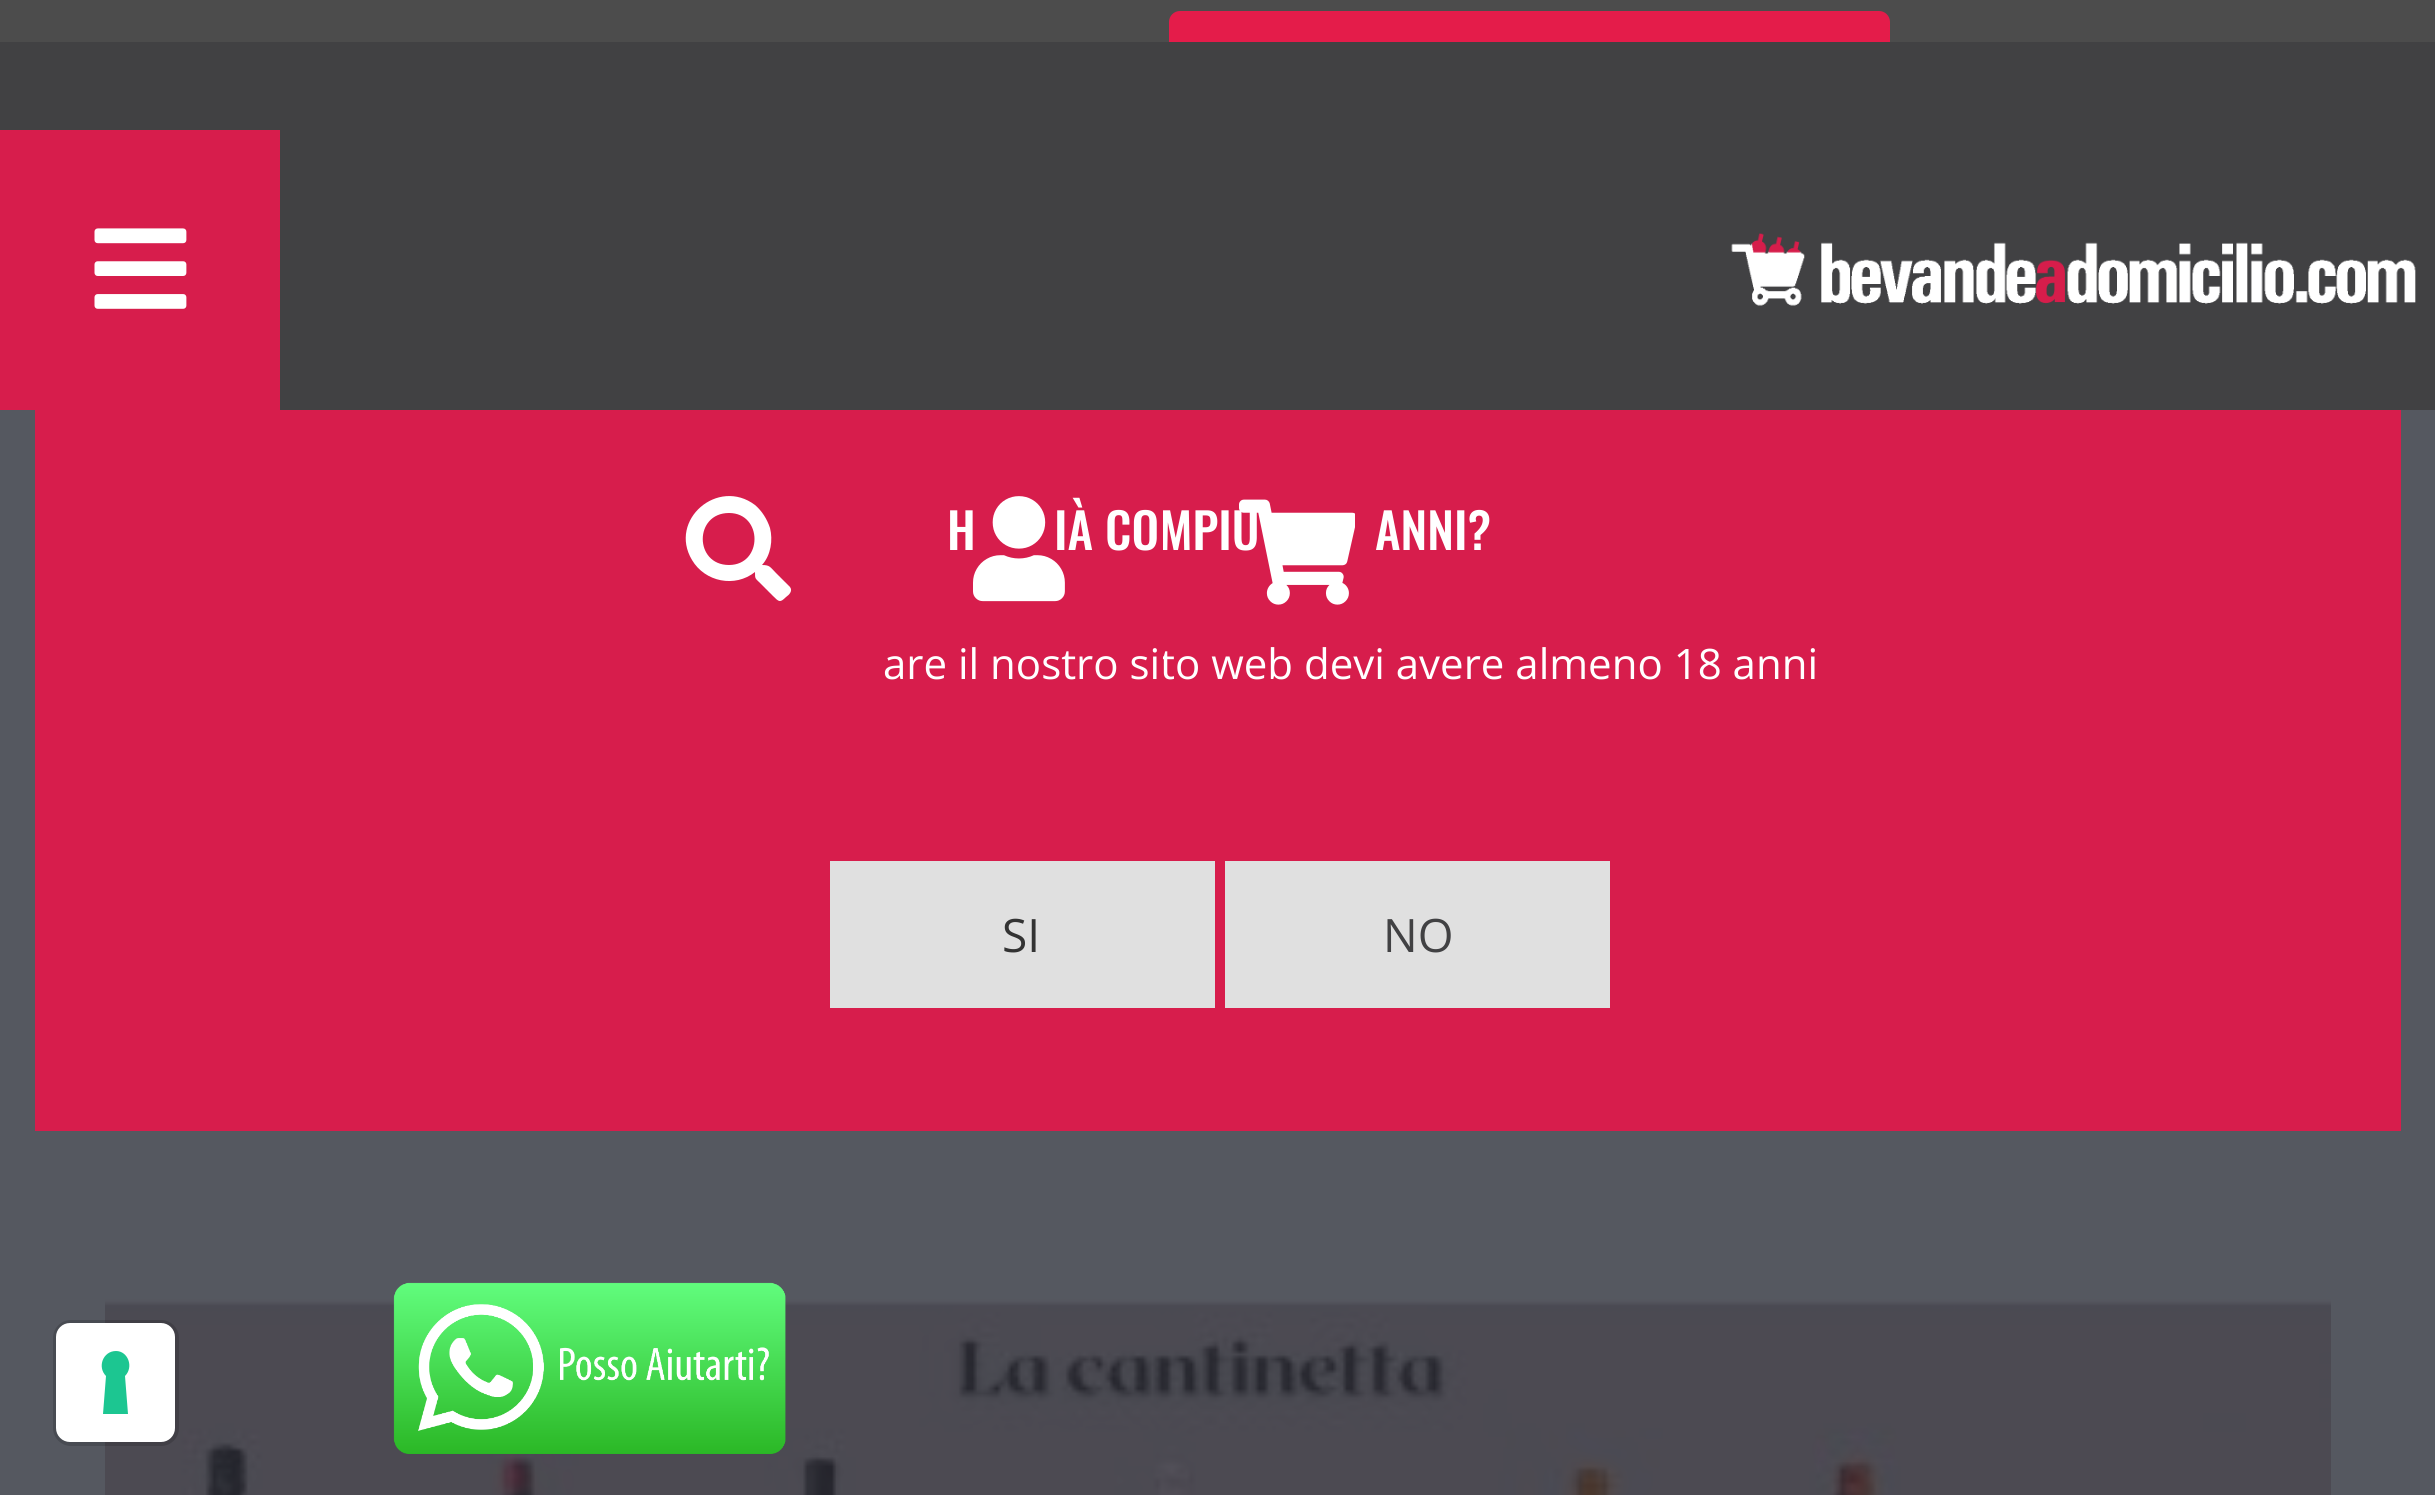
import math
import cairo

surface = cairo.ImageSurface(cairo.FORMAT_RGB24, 2435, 1495)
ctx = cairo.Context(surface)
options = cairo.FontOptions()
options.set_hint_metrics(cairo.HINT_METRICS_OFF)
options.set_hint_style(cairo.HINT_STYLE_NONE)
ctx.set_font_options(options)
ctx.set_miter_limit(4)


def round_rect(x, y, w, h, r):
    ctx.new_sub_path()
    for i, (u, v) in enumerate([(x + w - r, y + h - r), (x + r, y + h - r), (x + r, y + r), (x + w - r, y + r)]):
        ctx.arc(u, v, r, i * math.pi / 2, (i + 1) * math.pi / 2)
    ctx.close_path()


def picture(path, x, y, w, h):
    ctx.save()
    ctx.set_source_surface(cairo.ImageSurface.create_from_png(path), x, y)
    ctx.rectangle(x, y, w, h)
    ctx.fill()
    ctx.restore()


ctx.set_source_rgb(0.333, 0.345, 0.376)
ctx.paint()
ctx.set_source_rgb(0.298, 0.298, 0.298)
ctx.rectangle(0, 0, 2435, 42)
ctx.fill()
ctx.set_source_rgb(0.894, 0.11, 0.29)
round_rect(1169, 11, 721, 101, 11)
ctx.fill()
ctx.set_source_rgb(0.255, 0.255, 0.263)
ctx.rectangle(0, 42, 2435, 88)
ctx.fill()
ctx.rectangle(280, 130, 2155, 280)
ctx.fill()
ctx.set_source_rgb(0.843, 0.114, 0.298)
ctx.rectangle(0, 130, 280, 280)
ctx.fill()
picture("img1.png", 94, 228, 93, 81)
picture("img2.png", 1731, 233, 685, 73)
ctx.rectangle(35, 410, 2366, 721)
ctx.fill()
ctx.set_source_rgb(1, 1, 1)
ctx.new_path()
ctx.move_to(790, 587)
ctx.line_to(776, 573)
ctx.curve_to(770, 567, 770, 565, 762, 565)
ctx.curve_to(771, 555, 773, 540, 770, 528)
ctx.curve_to(767, 519, 762, 511, 755, 505)
ctx.curve_to(718, 477, 668, 520, 692, 560)
ctx.curve_to(705, 582, 735, 588, 755, 572)
ctx.curve_to(755, 579, 755, 578, 760, 583)
ctx.line_to(773, 596)
ctx.curve_to(779, 602, 780, 603, 786, 597)
ctx.curve_to(789, 595, 793, 591, 790, 587)
ctx.close_path()
ctx.move_to(729, 565)
ctx.curve_to(694, 565, 694, 513, 729, 513)
ctx.curve_to(763, 513, 763, 565, 729, 565)
ctx.close_path()
ctx.fill()
ctx.select_font_face("Oswald Medium")
ctx.set_font_size(49)
ctx.move_to(1054, 550)
ctx.show_text("IÀ COMPIU")
picture("img3.png", 973, 496, 92, 106)
ctx.select_font_face("Open Sans")
ctx.set_font_size(42)
ctx.move_to(883, 679)
ctx.show_text("are il nostro sito web devi avere almeno 18 anni")
ctx.set_source_rgb(0.843, 0.114, 0.298)
ctx.rectangle(1160, 510, 3, 150)
ctx.fill()
picture("img4.png", 1239, 499, 116, 106)
picture("img5.png", 105, 1299, 2226, 196)
ctx.select_font_face("Oswald Medium")
ctx.set_font_size(49)
ctx.set_source_rgb(1, 1, 1)
ctx.move_to(947, 550)
ctx.show_text("H")
ctx.move_to(1375, 550)
ctx.show_text("ANNI?")
ctx.set_source_rgb(0.878, 0.878, 0.878)
ctx.rectangle(830, 861, 385, 147)
ctx.fill()
ctx.select_font_face("Open Sans")
ctx.set_font_size(46)
ctx.set_source_rgb(0.2, 0.2, 0.2)
ctx.move_to(1002, 952)
ctx.show_text("SI")
ctx.set_source_rgb(0.878, 0.878, 0.878)
ctx.rectangle(1225, 861, 385, 147)
ctx.fill()
ctx.set_source_rgb(0.255, 0.255, 0.263)
ctx.move_to(1383, 952)
ctx.show_text("NO")
round_rect(55, 1322, 122, 122, 16)
ctx.set_source_rgba(0, 0, 0, 0.15)
ctx.set_line_width(4)
ctx.stroke()
ctx.set_source_rgb(1, 1, 1)
round_rect(56, 1323, 119, 119, 14)
ctx.fill()
ctx.set_source_rgb(0.11, 0.776, 0.569)
ctx.set_fill_rule(cairo.FILL_RULE_EVEN_ODD)
ctx.new_path()
ctx.move_to(116, 1351)
ctx.curve_to(128, 1351, 134, 1367, 125, 1376)
ctx.line_to(128, 1414)
ctx.line_to(103, 1414)
ctx.line_to(106, 1376)
ctx.curve_to(97, 1367, 103, 1351, 116, 1351)
ctx.close_path()
ctx.fill()
picture("img6.png", 393, 1282, 393, 172)
surface.write_to_png("page.png")
